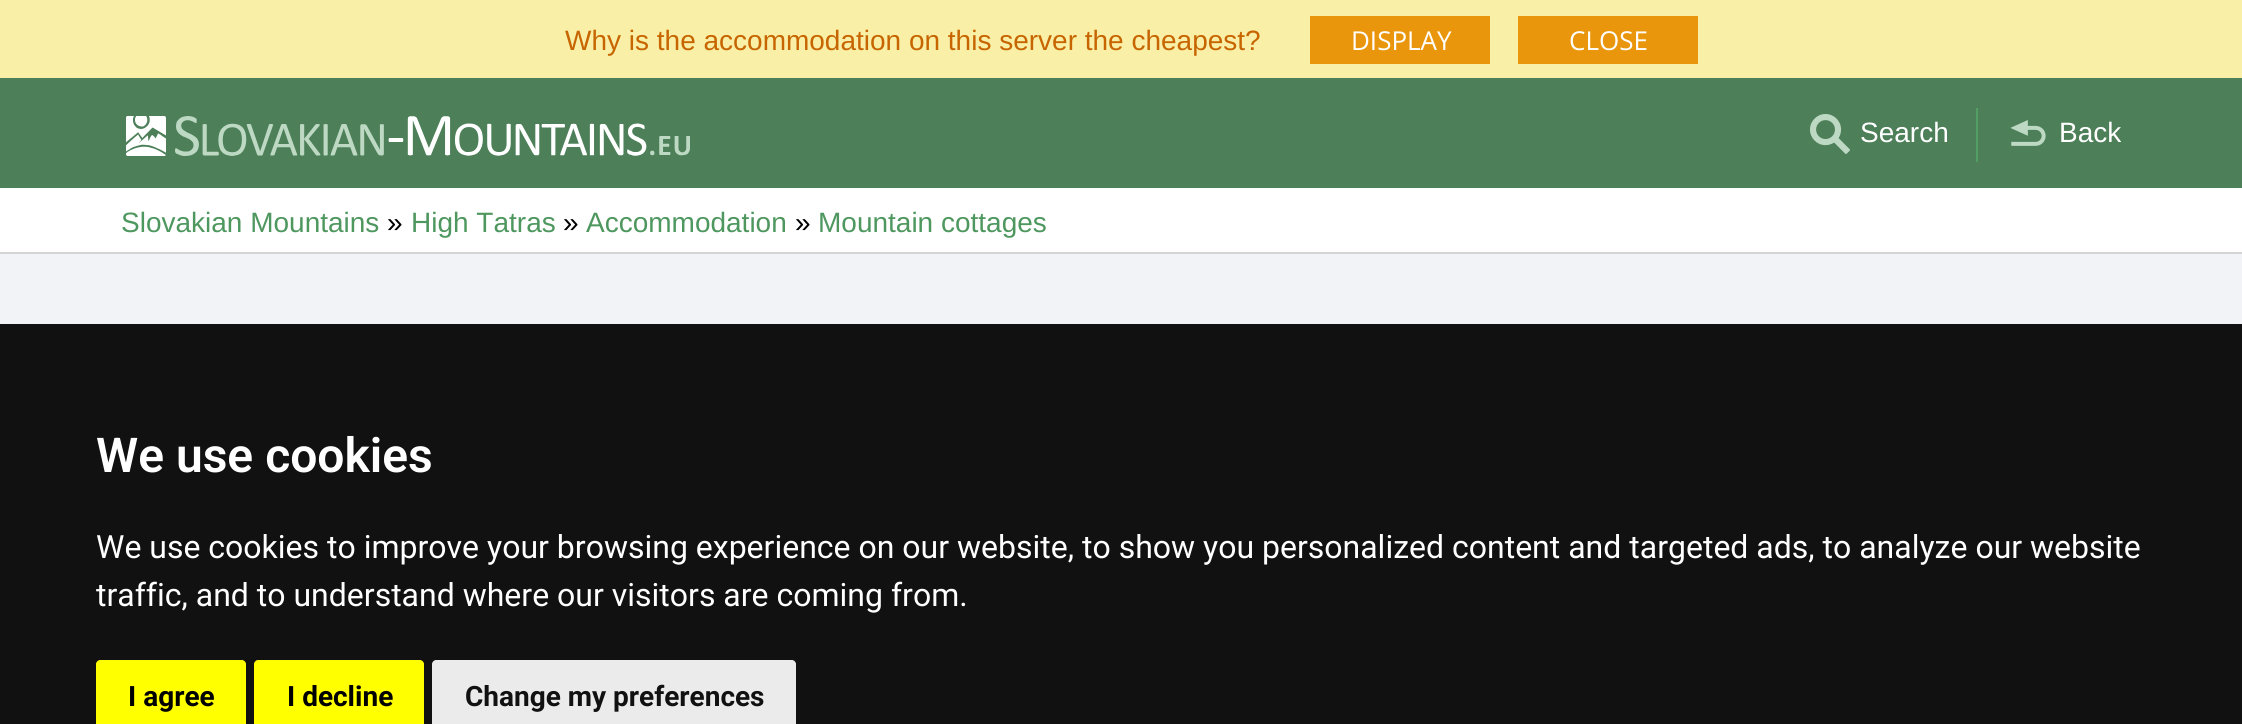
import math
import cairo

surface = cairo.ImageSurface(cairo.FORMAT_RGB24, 2242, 724)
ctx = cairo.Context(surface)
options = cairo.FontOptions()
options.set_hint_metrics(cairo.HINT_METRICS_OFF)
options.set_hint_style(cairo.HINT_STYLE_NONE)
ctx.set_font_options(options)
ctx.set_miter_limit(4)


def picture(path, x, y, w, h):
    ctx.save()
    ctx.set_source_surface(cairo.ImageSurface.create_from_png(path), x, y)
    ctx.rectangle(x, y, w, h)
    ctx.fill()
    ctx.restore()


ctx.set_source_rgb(0.945, 0.953, 0.961)
ctx.paint()
ctx.set_source_rgb(0.976, 0.937, 0.651)
ctx.rectangle(0, 0, 2242, 78)
ctx.fill()
ctx.select_font_face("Liberation Sans")
ctx.set_font_size(28)
ctx.set_source_rgb(0.78, 0.396, 0)
ctx.move_to(565, 50)
ctx.show_text("Why is the accommodation on this server the cheapest?")
ctx.set_source_rgb(0.914, 0.588, 0.047)
ctx.rectangle(1310, 16, 180, 48)
ctx.fill()
ctx.select_font_face("Open Sans")
ctx.set_font_size(26)
ctx.set_source_rgb(1, 1, 1)
ctx.move_to(1351, 50)
ctx.show_text("DISPLAY")
ctx.set_source_rgb(0.914, 0.588, 0.047)
ctx.rectangle(1518, 16, 180, 48)
ctx.fill()
ctx.set_source_rgb(1, 1, 1)
ctx.move_to(1569, 50)
ctx.show_text("CLOSE")
ctx.set_source_rgb(0.302, 0.502, 0.349)
ctx.rectangle(0, 78, 2242, 110)
ctx.fill()
picture("img1.png", 126, 116, 564, 40)
picture("img2.png", 1810, 114, 40, 40)
ctx.select_font_face("Liberation Sans")
ctx.set_font_size(28)
ctx.set_source_rgb(1, 1, 1)
ctx.move_to(1860, 142)
ctx.show_text("Search")
ctx.set_source_rgb(0.325, 0.62, 0.396)
ctx.rectangle(1976, 108, 2, 54)
ctx.fill()
picture("img3.png", 2010, 120, 36, 26)
ctx.set_source_rgb(1, 1, 1)
ctx.move_to(2059, 142)
ctx.show_text("Back")
ctx.rectangle(0, 188, 2242, 64)
ctx.fill()
ctx.set_source_rgb(0.831, 0.831, 0.831)
ctx.rectangle(0, 252, 2242, 2)
ctx.fill()
ctx.set_source_rgb(0.306, 0.592, 0.373)
ctx.move_to(121, 232)
ctx.show_text("Slovakian Mountains")
ctx.set_source_rgb(0, 0, 0)
ctx.move_to(387, 232)
ctx.show_text("»")
ctx.set_source_rgb(0.306, 0.592, 0.373)
ctx.move_to(411, 232)
ctx.show_text("High Tatras")
ctx.set_source_rgb(0, 0, 0)
ctx.move_to(563, 232)
ctx.show_text("»")
ctx.set_source_rgb(0.306, 0.592, 0.373)
ctx.move_to(586, 232)
ctx.show_text("Accommodation")
ctx.set_source_rgb(0, 0, 0)
ctx.move_to(795, 232)
ctx.show_text("»")
ctx.set_source_rgb(0.306, 0.592, 0.373)
ctx.move_to(818, 232)
ctx.show_text("Mountain cottages")
ctx.set_source_rgb(0.067, 0.067, 0.067)
ctx.rectangle(0, 324, 2242, 400)
ctx.fill()
ctx.select_font_face("Roboto SemiBold")
ctx.set_font_size(48)
ctx.set_source_rgb(1, 1, 1)
ctx.move_to(96, 472)
ctx.show_text("We use cookies")
ctx.select_font_face("Roboto")
ctx.set_font_size(32)
ctx.move_to(96, 558)
ctx.show_text("We use cookies to improve your browsing experience on our website, to show you personalized content and targeted ads, to analyze our website")
ctx.move_to(96, 606)
ctx.show_text("traffic, and to understand where our visitors are coming from.")
ctx.set_source_rgb(1, 1, 0)
ctx.new_path()
ctx.move_to(100, 660)
ctx.line_to(242, 660)
ctx.curve_to(244, 660, 246, 662, 246, 664)
ctx.line_to(246, 724)
ctx.line_to(96, 724)
ctx.line_to(96, 664)
ctx.curve_to(96, 662, 98, 660, 100, 660)
ctx.close_path()
ctx.fill()
ctx.select_font_face("Roboto", cairo.FONT_SLANT_NORMAL, cairo.FONT_WEIGHT_BOLD)
ctx.set_font_size(28)
ctx.set_source_rgb(0, 0, 0)
ctx.move_to(128, 706)
ctx.show_text("I agree")
ctx.set_source_rgb(1, 1, 0)
ctx.new_path()
ctx.move_to(258, 660)
ctx.line_to(420, 660)
ctx.curve_to(422, 660, 424, 662, 424, 664)
ctx.line_to(424, 724)
ctx.line_to(254, 724)
ctx.line_to(254, 664)
ctx.curve_to(254, 662, 256, 660, 258, 660)
ctx.close_path()
ctx.fill()
ctx.set_source_rgb(0, 0, 0)
ctx.move_to(287, 706)
ctx.show_text("I decline")
ctx.set_source_rgb(0.918, 0.918, 0.918)
ctx.new_path()
ctx.move_to(436, 660)
ctx.line_to(792, 660)
ctx.curve_to(794, 660, 796, 662, 796, 664)
ctx.line_to(796, 724)
ctx.line_to(432, 724)
ctx.line_to(432, 664)
ctx.curve_to(432, 662, 434, 660, 436, 660)
ctx.close_path()
ctx.fill()
ctx.set_source_rgb(0.067, 0.067, 0.067)
ctx.move_to(465, 706)
ctx.show_text("Change my preferences")
surface.write_to_png("page.png")
